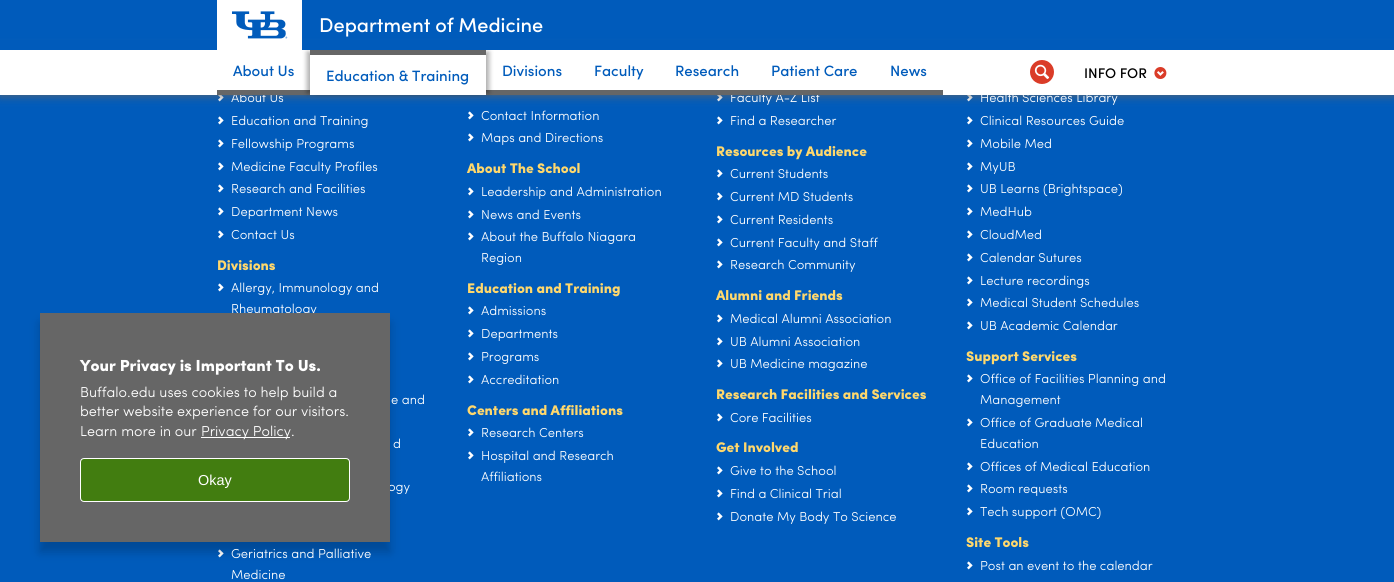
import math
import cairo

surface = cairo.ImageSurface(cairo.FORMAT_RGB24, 1394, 582)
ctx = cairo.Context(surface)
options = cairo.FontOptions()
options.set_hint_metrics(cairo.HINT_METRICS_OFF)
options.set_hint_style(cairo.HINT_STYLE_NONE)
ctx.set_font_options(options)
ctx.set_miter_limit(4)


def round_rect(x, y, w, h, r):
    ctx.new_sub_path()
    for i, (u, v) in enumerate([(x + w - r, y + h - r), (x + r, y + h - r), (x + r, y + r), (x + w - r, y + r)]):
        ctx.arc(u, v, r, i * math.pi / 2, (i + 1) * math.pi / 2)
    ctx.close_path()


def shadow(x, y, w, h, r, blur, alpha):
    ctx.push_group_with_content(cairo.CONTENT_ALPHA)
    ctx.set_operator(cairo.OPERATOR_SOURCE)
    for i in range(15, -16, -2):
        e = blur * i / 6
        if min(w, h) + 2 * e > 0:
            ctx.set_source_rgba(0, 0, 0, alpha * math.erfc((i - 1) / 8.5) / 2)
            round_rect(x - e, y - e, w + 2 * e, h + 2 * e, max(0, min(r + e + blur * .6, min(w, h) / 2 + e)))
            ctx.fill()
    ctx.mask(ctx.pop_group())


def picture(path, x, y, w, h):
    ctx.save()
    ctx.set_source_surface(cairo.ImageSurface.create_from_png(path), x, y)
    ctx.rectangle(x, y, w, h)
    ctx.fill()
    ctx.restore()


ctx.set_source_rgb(0, 0.357, 0.733)
ctx.paint()
picture("img4.png", 218, 95, 6, 7)
picture("img4.png", 717, 95, 6, 7)
picture("img4.png", 967, 95, 6, 7)
ctx.set_source_rgb(0.4, 0.4, 0.4)
shadow(0, 50, 1394, 45, 0, 5, 1)
ctx.set_source_rgb(1, 1, 1)
ctx.rectangle(0, 50, 1394, 45)
ctx.fill()
ctx.select_font_face("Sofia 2")
ctx.set_font_size(13)
ctx.move_to(231, 102)
ctx.show_text("About Us")
ctx.set_source_rgb(0.4, 0.4, 0.4)
ctx.rectangle(217, 90, 93, 5)
ctx.fill()
ctx.set_source_rgb(1, 1, 1)
ctx.move_to(730, 102)
ctx.show_text("Faculty A-Z List")
ctx.set_source_rgb(0.4, 0.4, 0.4)
ctx.rectangle(486, 90, 457, 5)
ctx.fill()
ctx.save()
ctx.set_fill_rule(cairo.FILL_RULE_EVEN_ODD)
ctx.new_path()
ctx.move_to(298, 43)
ctx.line_to(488, 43)
ctx.line_to(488, 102)
ctx.line_to(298, 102)
ctx.close_path()
ctx.move_to(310, 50)
ctx.line_to(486, 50)
ctx.line_to(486, 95)
ctx.line_to(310, 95)
ctx.close_path()
ctx.clip()
ctx.set_source_rgb(0, 0, 0)
shadow(307, 52, 172, 41, 0, 2.5, 0.33)
ctx.restore()
ctx.save()
ctx.set_fill_rule(cairo.FILL_RULE_EVEN_ODD)
ctx.new_path()
ctx.move_to(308, 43)
ctx.line_to(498, 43)
ctx.line_to(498, 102)
ctx.line_to(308, 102)
ctx.close_path()
ctx.move_to(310, 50)
ctx.line_to(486, 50)
ctx.line_to(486, 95)
ctx.line_to(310, 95)
ctx.close_path()
ctx.clip()
ctx.set_source_rgb(0, 0, 0)
shadow(317, 52, 172, 41, 0, 2.5, 0.33)
ctx.restore()
ctx.set_source_rgb(0, 0.357, 0.733)
ctx.rectangle(0, 40, 1394, 10)
ctx.fill()
ctx.set_source_rgb(1, 1, 1)
ctx.rectangle(217, 0, 85, 50)
ctx.fill()
picture("img1.png", 232, 11, 56, 28)
ctx.select_font_face("Sofia Medium")
ctx.set_font_size(20)
ctx.move_to(319, 32)
ctx.show_text("Department of Medicine")
ctx.set_font_size(15)
ctx.set_source_rgb(0, 0.357, 0.733)
ctx.move_to(233, 76)
ctx.show_text("About Us")
ctx.set_source_rgb(0.4, 0.4, 0.4)
ctx.rectangle(310, 50, 176, 5)
ctx.fill()
ctx.set_source_rgb(0, 0.357, 0.733)
ctx.move_to(326, 81)
ctx.show_text("Education & Training")
ctx.move_to(502, 76)
ctx.show_text("Divisions")
ctx.move_to(594, 76)
ctx.show_text("Faculty")
ctx.move_to(675, 76)
ctx.show_text("Research")
ctx.move_to(771, 76)
ctx.show_text("Patient Care")
ctx.move_to(890, 76)
ctx.show_text("News")
ctx.set_source_rgb(0.855, 0.235, 0.157)
ctx.new_path()
ctx.arc(1042, 72, 12, 0, 2 * math.pi)
ctx.fill()
picture("img2.png", 1034, 64, 16, 15)
ctx.set_font_size(14)
ctx.set_source_rgb(0, 0, 0)
ctx.move_to(1084, 78)
ctx.show_text("INFO FOR")
picture("img3.png", 1154, 67, 13, 12)
picture("img5.png", 218, 549, 6, 9)
ctx.set_source_rgb(0, 0, 0)
shadow(40, 323, 350, 229, 0, 5, 0.2)
ctx.select_font_face("Sofia 2")
ctx.set_font_size(13)
ctx.set_source_rgb(1, 1, 1)
ctx.move_to(231, 313)
ctx.show_text("Rheumatology")
ctx.move_to(388, 491)
ctx.show_text("ogy")
ctx.set_source_rgb(0.4, 0.4, 0.4)
ctx.rectangle(40, 313, 350, 229)
ctx.fill()
ctx.select_font_face("Sofia")
ctx.set_font_size(16)
ctx.set_source_rgb(1, 1, 1)
ctx.move_to(80, 371)
ctx.show_text("Your Privacy is Important To Us.")
ctx.select_font_face("Sofia 2")
ctx.set_font_size(14.4)
ctx.move_to(80, 397)
ctx.show_text("Buffalo.edu uses cookies to help build a")
ctx.move_to(80, 416)
ctx.show_text("better website experience for our visitors.")
ctx.move_to(80, 436)
ctx.show_text("Learn more in our")
ctx.rectangle(201, 437, 89, 1)
ctx.fill()
ctx.move_to(201, 436)
ctx.show_text("Privacy Policy.")
ctx.set_source_rgb(0.259, 0.49, 0.063)
round_rect(80.5, 458.5, 269, 43, 3.5)
ctx.fill_preserve()
ctx.set_source_rgb(1, 1, 1)
ctx.set_line_width(1)
ctx.stroke()
ctx.select_font_face("Liberation Sans")
ctx.move_to(198, 485)
ctx.show_text("Okay")
picture("img5.png", 218, 116, 6, 9)
ctx.select_font_face("Sofia 2")
ctx.set_font_size(13)
ctx.move_to(231, 125)
ctx.show_text("Education and Training")
picture("img5.png", 218, 139, 6, 9)
ctx.move_to(231, 148)
ctx.show_text("Fellowship Programs")
picture("img5.png", 218, 162, 6, 9)
ctx.move_to(231, 171)
ctx.show_text("Medicine Faculty Profiles")
picture("img5.png", 218, 184, 6, 9)
ctx.move_to(231, 193)
ctx.show_text("Research and Facilities")
picture("img5.png", 218, 207, 6, 9)
ctx.move_to(231, 216)
ctx.show_text("Department News")
picture("img5.png", 218, 230, 6, 9)
ctx.move_to(231, 239)
ctx.show_text("Contact Us")
ctx.select_font_face("Sofia")
ctx.set_font_size(14)
ctx.set_source_rgb(1, 0.847, 0.424)
ctx.move_to(217, 270)
ctx.show_text("Divisions")
picture("img5.png", 218, 283, 6, 9)
ctx.select_font_face("Sofia 2")
ctx.set_font_size(13)
ctx.set_source_rgb(1, 1, 1)
ctx.move_to(231, 292)
ctx.show_text("Allergy, Immunology and")
ctx.move_to(391, 404)
ctx.show_text("e and")
ctx.move_to(393, 448)
ctx.show_text("d")
ctx.move_to(231, 558)
ctx.show_text("Geriatrics and Palliative")
ctx.move_to(231, 579)
ctx.show_text("Medicine")
picture("img5.png", 468, 111, 6, 9)
ctx.move_to(481, 120)
ctx.show_text("Contact Information")
picture("img5.png", 468, 133, 6, 9)
ctx.move_to(481, 142)
ctx.show_text("Maps and Directions")
ctx.select_font_face("Sofia")
ctx.set_font_size(14)
ctx.set_source_rgb(1, 0.847, 0.424)
ctx.move_to(467, 173)
ctx.show_text("About The School")
picture("img5.png", 468, 187, 6, 9)
ctx.select_font_face("Sofia 2")
ctx.set_font_size(13)
ctx.set_source_rgb(1, 1, 1)
ctx.move_to(481, 196)
ctx.show_text("Leadership and Administration")
picture("img5.png", 468, 210, 6, 9)
ctx.move_to(481, 219)
ctx.show_text("News and Events")
picture("img5.png", 468, 232, 6, 9)
ctx.move_to(481, 241)
ctx.show_text("About the Buffalo Niagara")
ctx.move_to(481, 262)
ctx.show_text("Region")
ctx.select_font_face("Sofia")
ctx.set_font_size(14)
ctx.set_source_rgb(1, 0.847, 0.424)
ctx.move_to(467, 293)
ctx.show_text("Education and Training")
picture("img5.png", 468, 306, 6, 9)
ctx.select_font_face("Sofia 2")
ctx.set_font_size(13)
ctx.set_source_rgb(1, 1, 1)
ctx.move_to(481, 315)
ctx.show_text("Admissions")
picture("img5.png", 468, 329, 6, 9)
ctx.move_to(481, 338)
ctx.show_text("Departments")
picture("img5.png", 468, 352, 6, 9)
ctx.move_to(481, 361)
ctx.show_text("Programs")
picture("img5.png", 468, 375, 6, 9)
ctx.move_to(481, 384)
ctx.show_text("Accreditation")
ctx.select_font_face("Sofia")
ctx.set_font_size(14)
ctx.set_source_rgb(1, 0.847, 0.424)
ctx.move_to(467, 415)
ctx.show_text("Centers and Affiliations")
picture("img5.png", 468, 428, 6, 9)
ctx.select_font_face("Sofia 2")
ctx.set_font_size(13)
ctx.set_source_rgb(1, 1, 1)
ctx.move_to(481, 437)
ctx.show_text("Research Centers")
picture("img5.png", 468, 451, 6, 9)
ctx.move_to(481, 460)
ctx.show_text("Hospital and Research")
ctx.move_to(481, 481)
ctx.show_text("Affiliations")
picture("img5.png", 717, 116, 6, 9)
ctx.move_to(730, 125)
ctx.show_text("Find a Researcher")
ctx.select_font_face("Sofia")
ctx.set_font_size(14)
ctx.set_source_rgb(1, 0.847, 0.424)
ctx.move_to(716, 156)
ctx.show_text("Resources by Audience")
picture("img5.png", 717, 169, 6, 9)
ctx.select_font_face("Sofia 2")
ctx.set_font_size(13)
ctx.set_source_rgb(1, 1, 1)
ctx.move_to(730, 178)
ctx.show_text("Current Students")
picture("img5.png", 717, 192, 6, 9)
ctx.move_to(730, 201)
ctx.show_text("Current MD Students")
picture("img5.png", 717, 215, 6, 9)
ctx.move_to(730, 224)
ctx.show_text("Current Residents")
picture("img5.png", 717, 238, 6, 9)
ctx.move_to(730, 247)
ctx.show_text("Current Faculty and Staff")
picture("img5.png", 717, 260, 6, 9)
ctx.move_to(730, 269)
ctx.show_text("Research Community")
ctx.select_font_face("Sofia")
ctx.set_font_size(14)
ctx.set_source_rgb(1, 0.847, 0.424)
ctx.move_to(716, 300)
ctx.show_text("Alumni and Friends")
picture("img5.png", 717, 314, 6, 9)
ctx.select_font_face("Sofia 2")
ctx.set_font_size(13)
ctx.set_source_rgb(1, 1, 1)
ctx.move_to(730, 323)
ctx.show_text("Medical Alumni Association")
picture("img5.png", 717, 337, 6, 9)
ctx.move_to(730, 346)
ctx.show_text("UB Alumni Association")
picture("img5.png", 717, 359, 6, 9)
ctx.move_to(730, 368)
ctx.show_text("UB Medicine magazine")
ctx.select_font_face("Sofia")
ctx.set_font_size(14)
ctx.set_source_rgb(1, 0.847, 0.424)
ctx.move_to(716, 399)
ctx.show_text("Research Facilities and Services")
picture("img5.png", 717, 413, 6, 9)
ctx.select_font_face("Sofia 2")
ctx.set_font_size(13)
ctx.set_source_rgb(1, 1, 1)
ctx.move_to(730, 422)
ctx.show_text("Core Facilities")
ctx.select_font_face("Sofia")
ctx.set_font_size(14)
ctx.set_source_rgb(1, 0.847, 0.424)
ctx.move_to(716, 452)
ctx.show_text("Get Involved")
picture("img5.png", 717, 466, 6, 9)
ctx.select_font_face("Sofia 2")
ctx.set_font_size(13)
ctx.set_source_rgb(1, 1, 1)
ctx.move_to(730, 475)
ctx.show_text("Give to the School")
picture("img5.png", 717, 489, 6, 9)
ctx.move_to(730, 498)
ctx.show_text("Find a Clinical Trial")
picture("img5.png", 717, 512, 6, 9)
ctx.move_to(730, 521)
ctx.show_text("Donate My Body To Science")
ctx.move_to(980, 102)
ctx.show_text("Health Sciences Library")
picture("img5.png", 967, 116, 6, 9)
ctx.move_to(980, 125)
ctx.show_text("Clinical Resources Guide")
picture("img5.png", 967, 139, 6, 9)
ctx.move_to(980, 148)
ctx.show_text("Mobile Med")
picture("img5.png", 967, 162, 6, 9)
ctx.move_to(980, 171)
ctx.show_text("MyUB")
picture("img5.png", 967, 184, 6, 9)
ctx.move_to(980, 193)
ctx.show_text("UB Learns (Brightspace)")
picture("img5.png", 967, 207, 6, 9)
ctx.move_to(980, 216)
ctx.show_text("MedHub")
picture("img5.png", 967, 230, 6, 9)
ctx.move_to(980, 239)
ctx.show_text("CloudMed")
picture("img5.png", 967, 253, 6, 9)
ctx.move_to(980, 262)
ctx.show_text("Calendar Sutures")
picture("img5.png", 967, 276, 6, 9)
ctx.move_to(980, 285)
ctx.show_text("Lecture recordings")
picture("img5.png", 967, 298, 6, 9)
ctx.move_to(980, 307)
ctx.show_text("Medical Student Schedules")
picture("img5.png", 967, 321, 6, 9)
ctx.move_to(980, 330)
ctx.show_text("UB Academic Calendar")
ctx.select_font_face("Sofia")
ctx.set_font_size(14)
ctx.set_source_rgb(1, 0.847, 0.424)
ctx.move_to(966, 361)
ctx.show_text("Support Services")
picture("img5.png", 967, 374, 6, 9)
ctx.select_font_face("Sofia 2")
ctx.set_font_size(13)
ctx.set_source_rgb(1, 1, 1)
ctx.move_to(980, 383)
ctx.show_text("Office of Facilities Planning and")
ctx.move_to(980, 404)
ctx.show_text("Management")
picture("img5.png", 967, 418, 6, 9)
ctx.move_to(980, 427)
ctx.show_text("Office of Graduate Medical")
ctx.move_to(980, 448)
ctx.show_text("Education")
picture("img5.png", 967, 462, 6, 9)
ctx.move_to(980, 471)
ctx.show_text("Offices of Medical Education")
picture("img5.png", 967, 484, 6, 9)
ctx.move_to(980, 493)
ctx.show_text("Room requests")
picture("img5.png", 967, 507, 6, 9)
ctx.move_to(980, 516)
ctx.show_text("Tech support (OMC)")
ctx.select_font_face("Sofia")
ctx.set_font_size(14)
ctx.set_source_rgb(1, 0.847, 0.424)
ctx.move_to(966, 547)
ctx.show_text("Site Tools")
picture("img5.png", 967, 561, 6, 9)
ctx.select_font_face("Sofia 2")
ctx.set_font_size(13)
ctx.set_source_rgb(1, 1, 1)
ctx.move_to(980, 570)
ctx.show_text("Post an event to the calendar")
surface.write_to_png("page.png")
